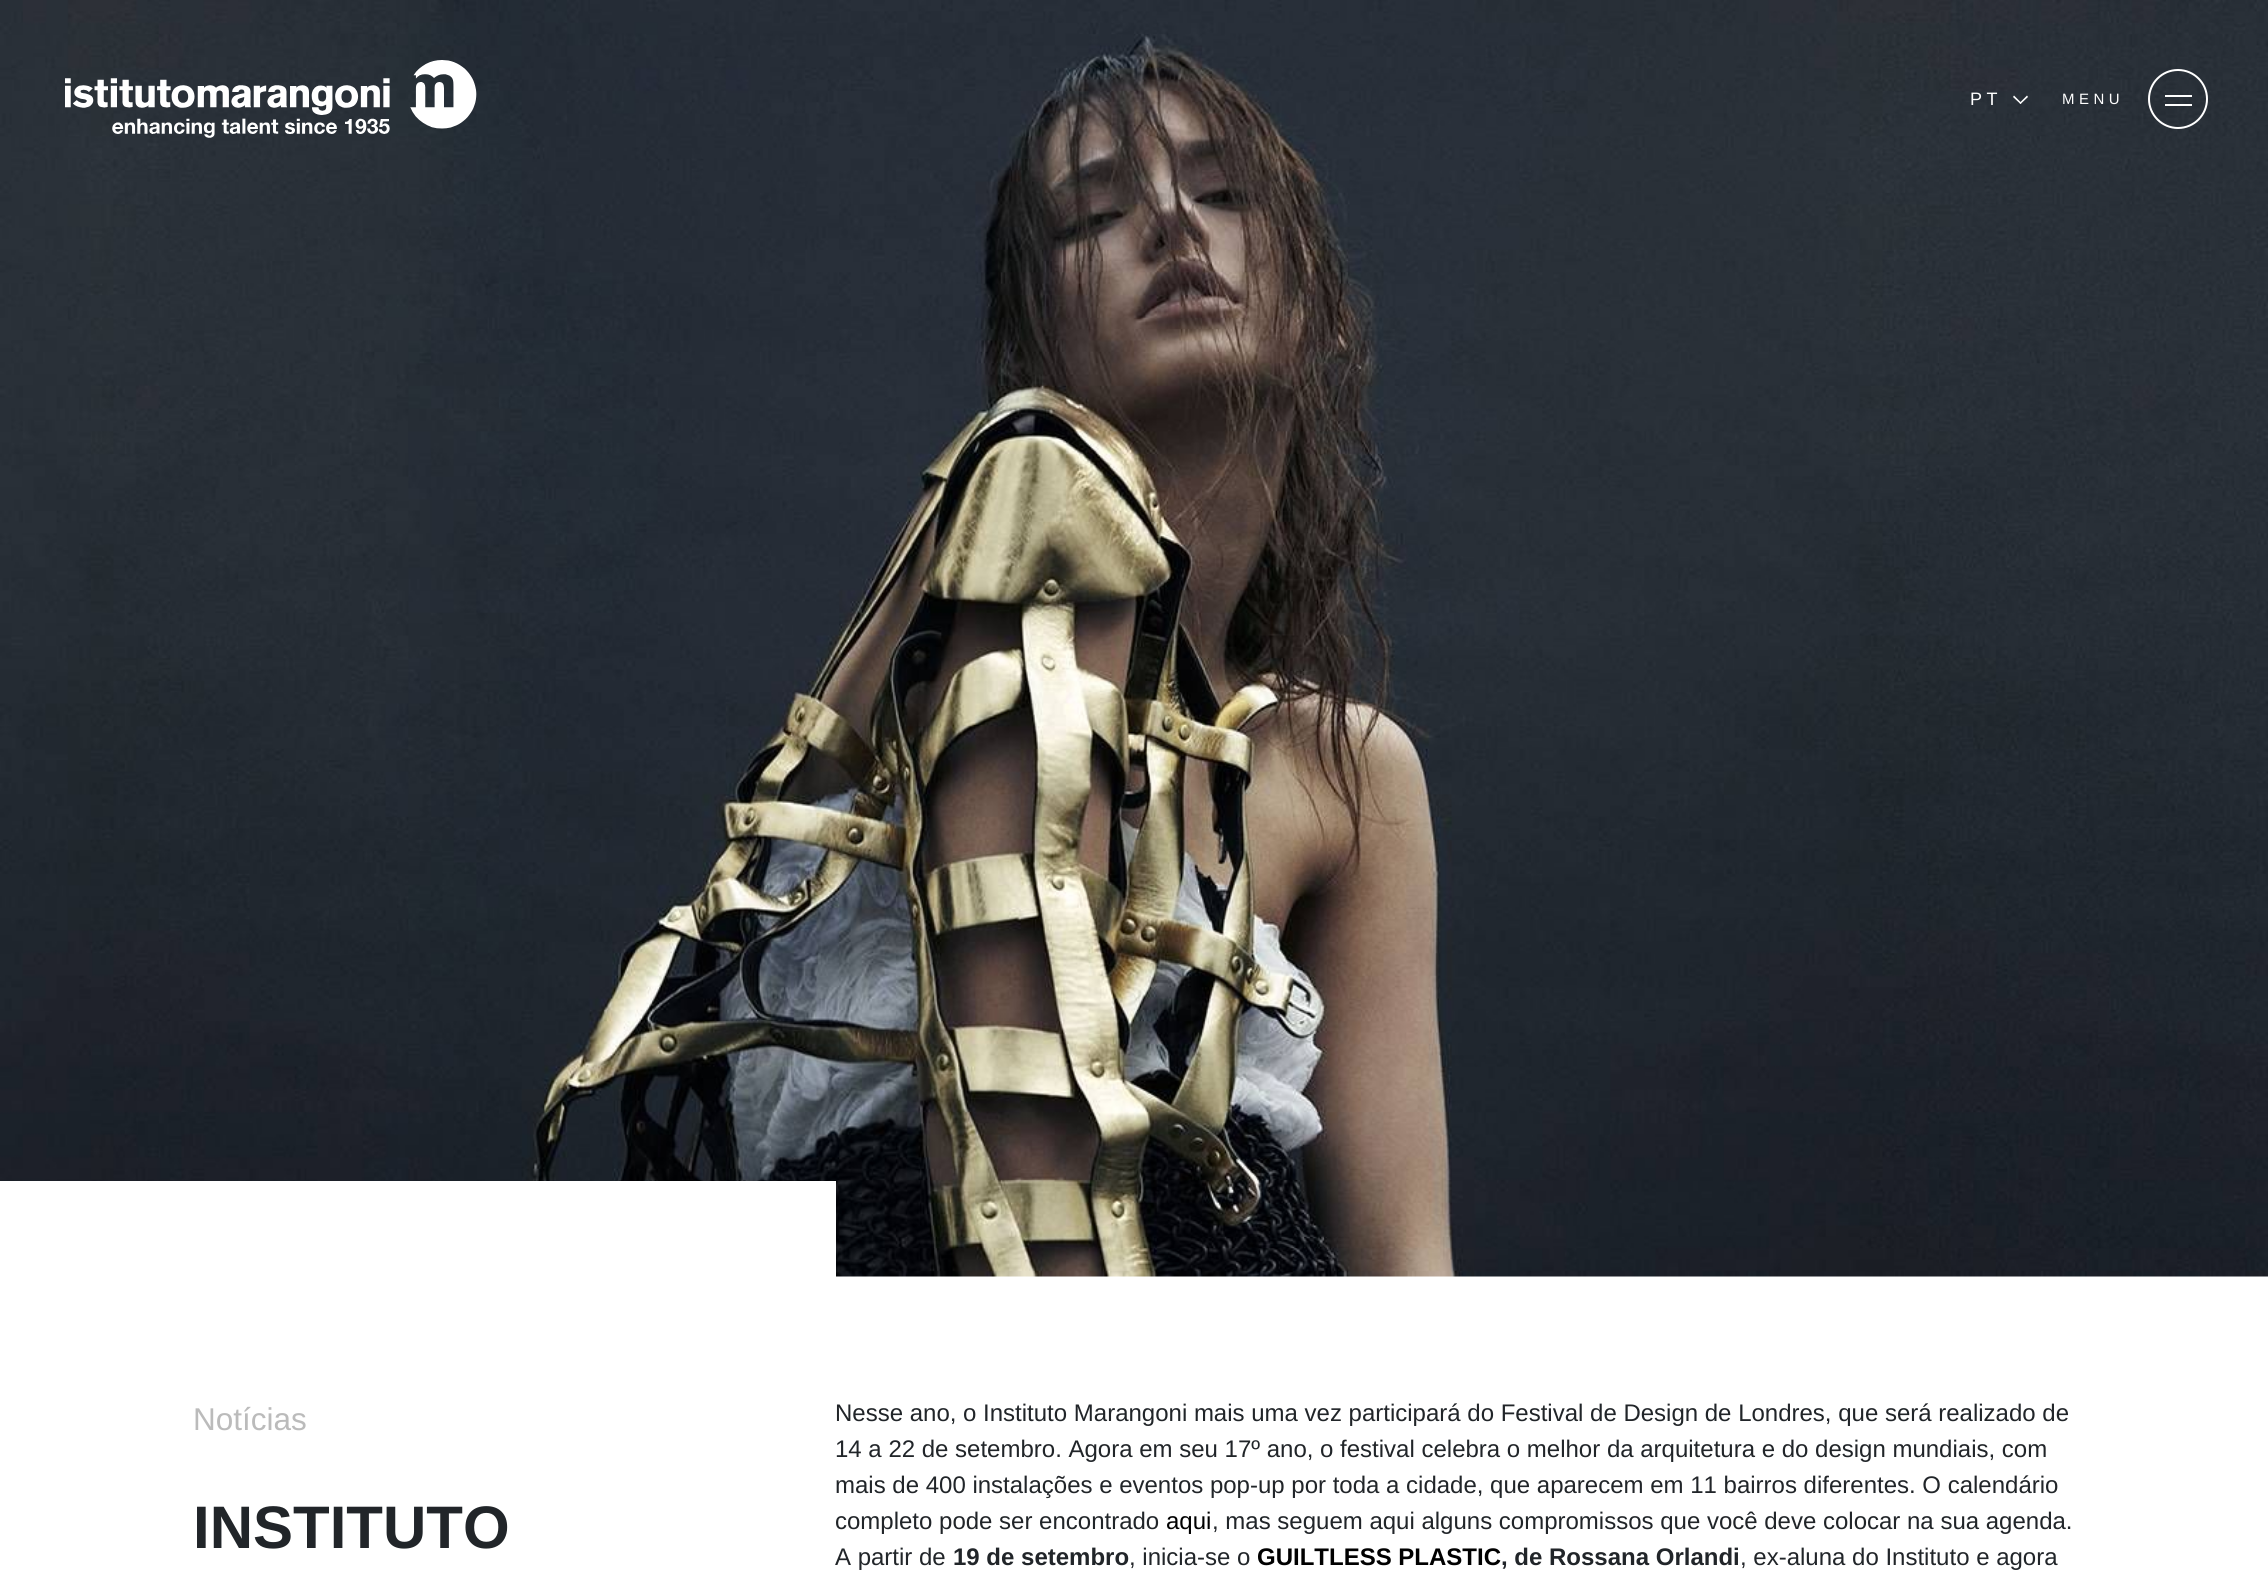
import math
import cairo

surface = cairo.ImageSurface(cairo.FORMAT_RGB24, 2268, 1594)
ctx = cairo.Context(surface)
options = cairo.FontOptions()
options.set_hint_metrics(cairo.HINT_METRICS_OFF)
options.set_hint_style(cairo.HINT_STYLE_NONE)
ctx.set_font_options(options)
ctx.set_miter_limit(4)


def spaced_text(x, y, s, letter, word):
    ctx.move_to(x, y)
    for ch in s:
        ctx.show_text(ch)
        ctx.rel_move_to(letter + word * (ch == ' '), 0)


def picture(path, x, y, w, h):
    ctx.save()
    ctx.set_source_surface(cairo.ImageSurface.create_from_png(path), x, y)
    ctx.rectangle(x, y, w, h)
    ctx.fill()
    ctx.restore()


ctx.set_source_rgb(1, 1, 1)
ctx.paint()
picture("img2.png", 0, 0, 2268, 1277)
picture("img1.png", 65, 60, 412, 78)
ctx.select_font_face("Liberation Sans")
ctx.set_font_size(18)
ctx.set_source_rgb(1, 1, 1)
spaced_text(1970, 105, "PT", 4.5, 0)
ctx.new_path()
ctx.move_to(2019.5, 103)
ctx.line_to(2027, 95.5)
ctx.line_to(2028, 97)
ctx.line_to(2020.5, 104)
ctx.close_path()
ctx.fill()
ctx.new_path()
ctx.move_to(2013, 97)
ctx.line_to(2014, 95.5)
ctx.line_to(2021.5, 103)
ctx.line_to(2020.5, 104)
ctx.close_path()
ctx.fill()
ctx.set_font_size(15)
spaced_text(2062, 104, "MENU", 4.5, 0)
ctx.new_path()
ctx.arc(2178, 99, 29, 0, 2 * math.pi)
ctx.stroke()
ctx.rectangle(2165, 95, 27, 2)
ctx.fill()
ctx.rectangle(2165, 104, 27, 2)
ctx.fill()
ctx.rectangle(0, 1181, 836, 96)
ctx.fill()
ctx.set_font_size(31.5)
ctx.set_source_rgb(0.733, 0.733, 0.733)
ctx.move_to(193, 1430)
ctx.show_text("Notícias")
ctx.select_font_face("Liberation Sans", cairo.FONT_SLANT_NORMAL, cairo.FONT_WEIGHT_BOLD)
ctx.set_font_size(60)
ctx.set_source_rgb(0.129, 0.145, 0.161)
ctx.move_to(193, 1548)
ctx.show_text("INSTITUTO")
ctx.select_font_face("Liberation Sans")
ctx.set_font_size(24)
ctx.move_to(835, 1421)
ctx.show_text("Nesse ano, o Instituto Marangoni mais uma vez participará do Festival de Design de Londres, que será realizado de")
ctx.move_to(835, 1457)
ctx.show_text("14 a 22 de setembro. Agora em seu 17º ano, o festival celebra o melhor da arquitetura e do design mundiais, com")
ctx.move_to(835, 1493)
ctx.show_text("mais de 400 instalações e eventos pop-up por toda a cidade, que aparecem em 11 bairros diferentes. O calendário")
ctx.move_to(835, 1529)
ctx.show_text("completo pode ser encontrado")
ctx.set_source_rgb(0, 0, 0)
ctx.move_to(1166, 1529)
ctx.show_text("aqui")
ctx.set_source_rgb(0.129, 0.145, 0.161)
ctx.move_to(1212, 1529)
ctx.show_text(", mas seguem aqui alguns compromissos que você deve colocar na sua agenda.")
ctx.move_to(835, 1565)
ctx.show_text("A partir de")
ctx.select_font_face("Liberation Sans", cairo.FONT_SLANT_NORMAL, cairo.FONT_WEIGHT_BOLD)
ctx.move_to(953, 1565)
ctx.show_text("19 de setembro")
ctx.select_font_face("Liberation Sans")
ctx.move_to(1129, 1565)
ctx.show_text(", inicia-se o")
ctx.select_font_face("Liberation Sans", cairo.FONT_SLANT_NORMAL, cairo.FONT_WEIGHT_BOLD)
ctx.set_source_rgb(0, 0, 0)
ctx.move_to(1257, 1565)
ctx.show_text("GUILTLESS PLASTIC")
ctx.set_source_rgb(0.129, 0.145, 0.161)
ctx.move_to(1501, 1565)
ctx.show_text(", de Rossana Orlandi")
ctx.select_font_face("Liberation Sans")
ctx.move_to(1740, 1565)
ctx.show_text(", ex-aluna do Instituto e agora")
surface.write_to_png("page.png")
